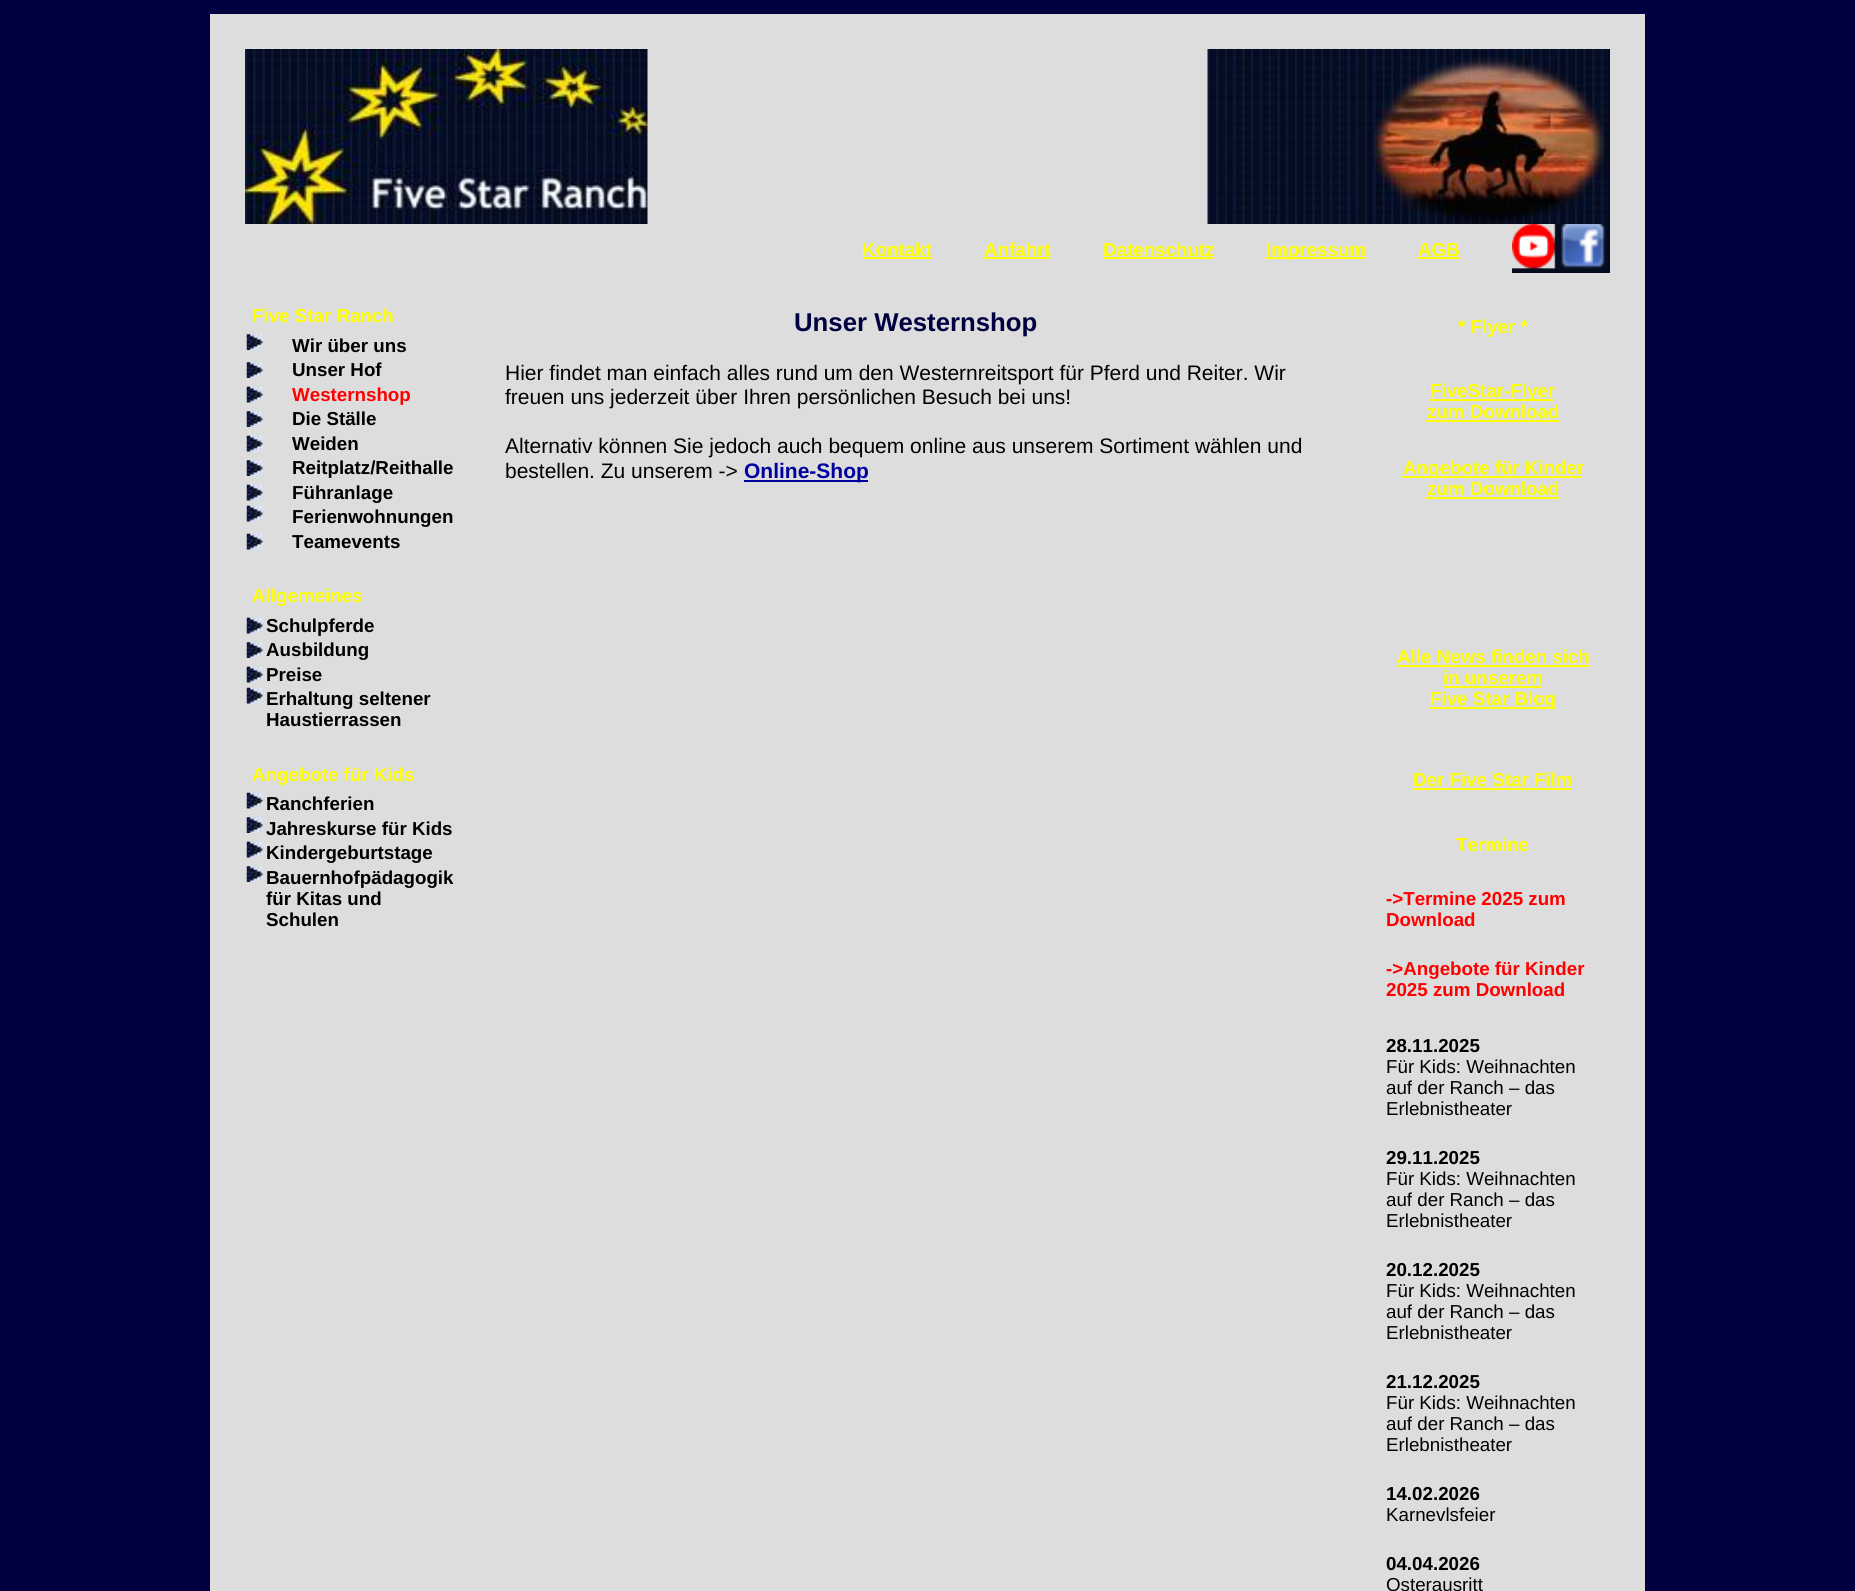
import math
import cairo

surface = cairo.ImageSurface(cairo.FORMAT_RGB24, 1855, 1591)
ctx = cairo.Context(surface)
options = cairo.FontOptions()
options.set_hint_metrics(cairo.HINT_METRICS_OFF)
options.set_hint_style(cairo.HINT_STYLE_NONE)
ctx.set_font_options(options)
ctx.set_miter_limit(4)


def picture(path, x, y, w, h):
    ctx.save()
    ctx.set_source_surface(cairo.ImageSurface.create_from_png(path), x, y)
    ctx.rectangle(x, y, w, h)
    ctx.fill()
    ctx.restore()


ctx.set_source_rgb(0, 0, 0.251)
ctx.paint()
ctx.set_source_rgb(0.867, 0.867, 0.867)
ctx.rectangle(210, 14, 1435, 1577)
ctx.fill()
picture("img1.png", 245, 49, 403, 175)
picture("img2.png", 1207, 49, 403, 175)
ctx.select_font_face("Liberation Sans", cairo.FONT_SLANT_NORMAL, cairo.FONT_WEIGHT_BOLD)
ctx.set_font_size(18.75)
ctx.set_source_rgb(1, 1, 0)
ctx.move_to(862, 256)
ctx.show_text("Kontakt")
ctx.rectangle(863, 257, 68, 2)
ctx.fill()
ctx.move_to(984, 256)
ctx.show_text("Anfahrt")
ctx.rectangle(984, 257, 66, 2)
ctx.fill()
ctx.move_to(1103, 256)
ctx.show_text("Datenschutz")
ctx.rectangle(1103, 257, 110, 2)
ctx.fill()
ctx.rectangle(1265, 257, 100, 2)
ctx.fill()
ctx.move_to(1266, 256)
ctx.show_text("Impressum")
ctx.move_to(1418, 256)
ctx.show_text("AGB")
ctx.rectangle(1418, 257, 42, 2)
ctx.fill()
picture("img3.png", 1512, 224, 49, 49)
picture("img4.png", 1561, 224, 49, 49)
ctx.move_to(252, 322)
ctx.show_text("Five Star Ranch")
picture("img5.png", 246, 334, 17, 16)
ctx.set_source_rgb(0, 0, 0)
ctx.move_to(292, 352)
ctx.show_text("Wir über uns")
picture("img5.png", 246, 362, 17, 16)
ctx.move_to(292, 376)
ctx.show_text("Unser Hof")
picture("img6.png", 246, 386, 17, 17)
ctx.set_source_rgb(1, 0, 0)
ctx.move_to(292, 401)
ctx.show_text("Westernshop")
picture("img5.png", 246, 411, 17, 16)
ctx.set_source_rgb(0, 0, 0)
ctx.move_to(292, 425)
ctx.show_text("Die Ställe")
picture("img6.png", 246, 435, 17, 17)
ctx.move_to(292, 450)
ctx.show_text("Weiden")
picture("img5.png", 246, 460, 17, 16)
ctx.move_to(292, 474)
ctx.show_text("Reitplatz/Reithalle")
picture("img6.png", 246, 484, 17, 17)
ctx.move_to(292, 499)
ctx.show_text("Führanlage")
picture("img6.png", 246, 505, 17, 17)
ctx.move_to(292, 523)
ctx.show_text("Ferienwohnungen")
picture("img6.png", 246, 533, 17, 17)
ctx.move_to(292, 548)
ctx.show_text("Teamevents")
ctx.set_source_rgb(1, 1, 0)
ctx.move_to(252, 602)
ctx.show_text("Allgemeines")
picture("img6.png", 246, 617, 17, 17)
ctx.set_source_rgb(0, 0, 0)
ctx.move_to(266, 632)
ctx.show_text("Schulpferde")
picture("img5.png", 246, 642, 17, 16)
ctx.move_to(266, 656)
ctx.show_text("Ausbildung")
picture("img6.png", 246, 666, 17, 17)
ctx.move_to(266, 681)
ctx.show_text("Preise")
picture("img6.png", 246, 687, 17, 17)
ctx.move_to(266, 705)
ctx.show_text("Erhaltung seltener")
ctx.move_to(266, 726)
ctx.show_text("Haustierrassen")
ctx.set_source_rgb(1, 1, 0)
ctx.move_to(252, 781)
ctx.show_text("Angebote für Kids")
picture("img6.png", 246, 792, 17, 17)
ctx.set_source_rgb(0, 0, 0)
ctx.move_to(266, 810)
ctx.show_text("Ranchferien")
picture("img5.png", 246, 817, 17, 16)
ctx.move_to(266, 835)
ctx.show_text("Jahreskurse für Kids")
picture("img6.png", 246, 841, 17, 17)
ctx.move_to(266, 859)
ctx.show_text("Kindergeburtstage")
picture("img5.png", 246, 866, 17, 16)
ctx.move_to(266, 884)
ctx.show_text("Bauernhofpädagogik")
ctx.move_to(266, 905)
ctx.show_text("für Kitas und")
ctx.move_to(266, 926)
ctx.show_text("Schulen")
ctx.set_font_size(25.75)
ctx.set_source_rgb(0, 0, 0.251)
ctx.move_to(794, 331)
ctx.show_text("Unser Westernshop")
ctx.select_font_face("Liberation Sans")
ctx.set_font_size(21)
ctx.set_source_rgb(0, 0, 0)
ctx.move_to(505, 380)
ctx.show_text("Hier findet man einfach alles rund um den Westernreitsport für Pferd und Reiter. Wir")
ctx.move_to(505, 404)
ctx.show_text("freuen uns jederzeit über Ihren persönlichen Besuch bei uns!")
ctx.move_to(505, 453)
ctx.show_text("Alternativ können Sie jedoch auch bequem online aus unserem Sortiment wählen und")
ctx.move_to(505, 478)
ctx.show_text("bestellen. Zu unserem ->")
ctx.set_source_rgb(0, 0, 0.627)
ctx.rectangle(744, 480, 124, 2)
ctx.fill()
ctx.select_font_face("Liberation Sans", cairo.FONT_SLANT_NORMAL, cairo.FONT_WEIGHT_BOLD)
ctx.move_to(744, 478)
ctx.show_text("Online-Shop")
ctx.set_font_size(18.75)
ctx.set_source_rgb(1, 1, 0)
ctx.move_to(1458, 333)
ctx.show_text("* Flyer *")
ctx.rectangle(1430, 399, 124, 2)
ctx.fill()
ctx.move_to(1430, 397)
ctx.show_text("FiveStar-Flyer")
ctx.move_to(1427, 418)
ctx.show_text("zum Download")
ctx.rectangle(1426, 420, 133, 2)
ctx.fill()
ctx.rectangle(1402, 476, 180, 2)
ctx.fill()
ctx.move_to(1403, 474)
ctx.show_text("Angebote für Kinder")
ctx.move_to(1427, 495)
ctx.show_text("zum Download")
ctx.rectangle(1426, 497, 133, 2)
ctx.fill()
ctx.move_to(1397, 663)
ctx.show_text("Alle News finden sich")
ctx.rectangle(1397, 665, 192, 2)
ctx.fill()
ctx.move_to(1443, 684)
ctx.show_text("in unserem")
ctx.rectangle(1444, 686, 98, 2)
ctx.fill()
ctx.rectangle(1430, 707, 126, 2)
ctx.fill()
ctx.move_to(1430, 705)
ctx.show_text("Five Star Blog")
ctx.move_to(1413, 786)
ctx.show_text("Der Five Star Film")
ctx.rectangle(1414, 788, 158, 2)
ctx.fill()
ctx.move_to(1456, 851)
ctx.show_text("Termine")
ctx.set_source_rgb(1, 0, 0)
ctx.move_to(1386, 905)
ctx.show_text("->Termine 2025 zum")
ctx.move_to(1386, 926)
ctx.show_text("Download")
ctx.move_to(1386, 975)
ctx.show_text("->Angebote für Kinder")
ctx.move_to(1386, 996)
ctx.show_text("2025 zum Download")
ctx.set_source_rgb(0, 0, 0)
ctx.move_to(1386, 1052)
ctx.show_text("28.11.2025")
ctx.select_font_face("Liberation Sans")
ctx.move_to(1386, 1073)
ctx.show_text("Für Kids: Weihnachten")
ctx.move_to(1386, 1094)
ctx.show_text("auf der Ranch – das")
ctx.move_to(1386, 1115)
ctx.show_text("Erlebnistheater")
ctx.select_font_face("Liberation Sans", cairo.FONT_SLANT_NORMAL, cairo.FONT_WEIGHT_BOLD)
ctx.move_to(1386, 1164)
ctx.show_text("29.11.2025")
ctx.select_font_face("Liberation Sans")
ctx.move_to(1386, 1185)
ctx.show_text("Für Kids: Weihnachten")
ctx.move_to(1386, 1206)
ctx.show_text("auf der Ranch – das")
ctx.move_to(1386, 1227)
ctx.show_text("Erlebnistheater")
ctx.select_font_face("Liberation Sans", cairo.FONT_SLANT_NORMAL, cairo.FONT_WEIGHT_BOLD)
ctx.move_to(1386, 1276)
ctx.show_text("20.12.2025")
ctx.select_font_face("Liberation Sans")
ctx.move_to(1386, 1297)
ctx.show_text("Für Kids: Weihnachten")
ctx.move_to(1386, 1318)
ctx.show_text("auf der Ranch – das")
ctx.move_to(1386, 1339)
ctx.show_text("Erlebnistheater")
ctx.select_font_face("Liberation Sans", cairo.FONT_SLANT_NORMAL, cairo.FONT_WEIGHT_BOLD)
ctx.move_to(1386, 1388)
ctx.show_text("21.12.2025")
ctx.select_font_face("Liberation Sans")
ctx.move_to(1386, 1409)
ctx.show_text("Für Kids: Weihnachten")
ctx.move_to(1386, 1430)
ctx.show_text("auf der Ranch – das")
ctx.move_to(1386, 1451)
ctx.show_text("Erlebnistheater")
ctx.select_font_face("Liberation Sans", cairo.FONT_SLANT_NORMAL, cairo.FONT_WEIGHT_BOLD)
ctx.move_to(1386, 1500)
ctx.show_text("14.02.2026")
ctx.select_font_face("Liberation Sans")
ctx.move_to(1386, 1521)
ctx.show_text("Karnevlsfeier")
ctx.select_font_face("Liberation Sans", cairo.FONT_SLANT_NORMAL, cairo.FONT_WEIGHT_BOLD)
ctx.move_to(1386, 1570)
ctx.show_text("04.04.2026")
ctx.select_font_face("Liberation Sans")
ctx.move_to(1386, 1591)
ctx.show_text("Osterausritt")
surface.write_to_png("page.png")
